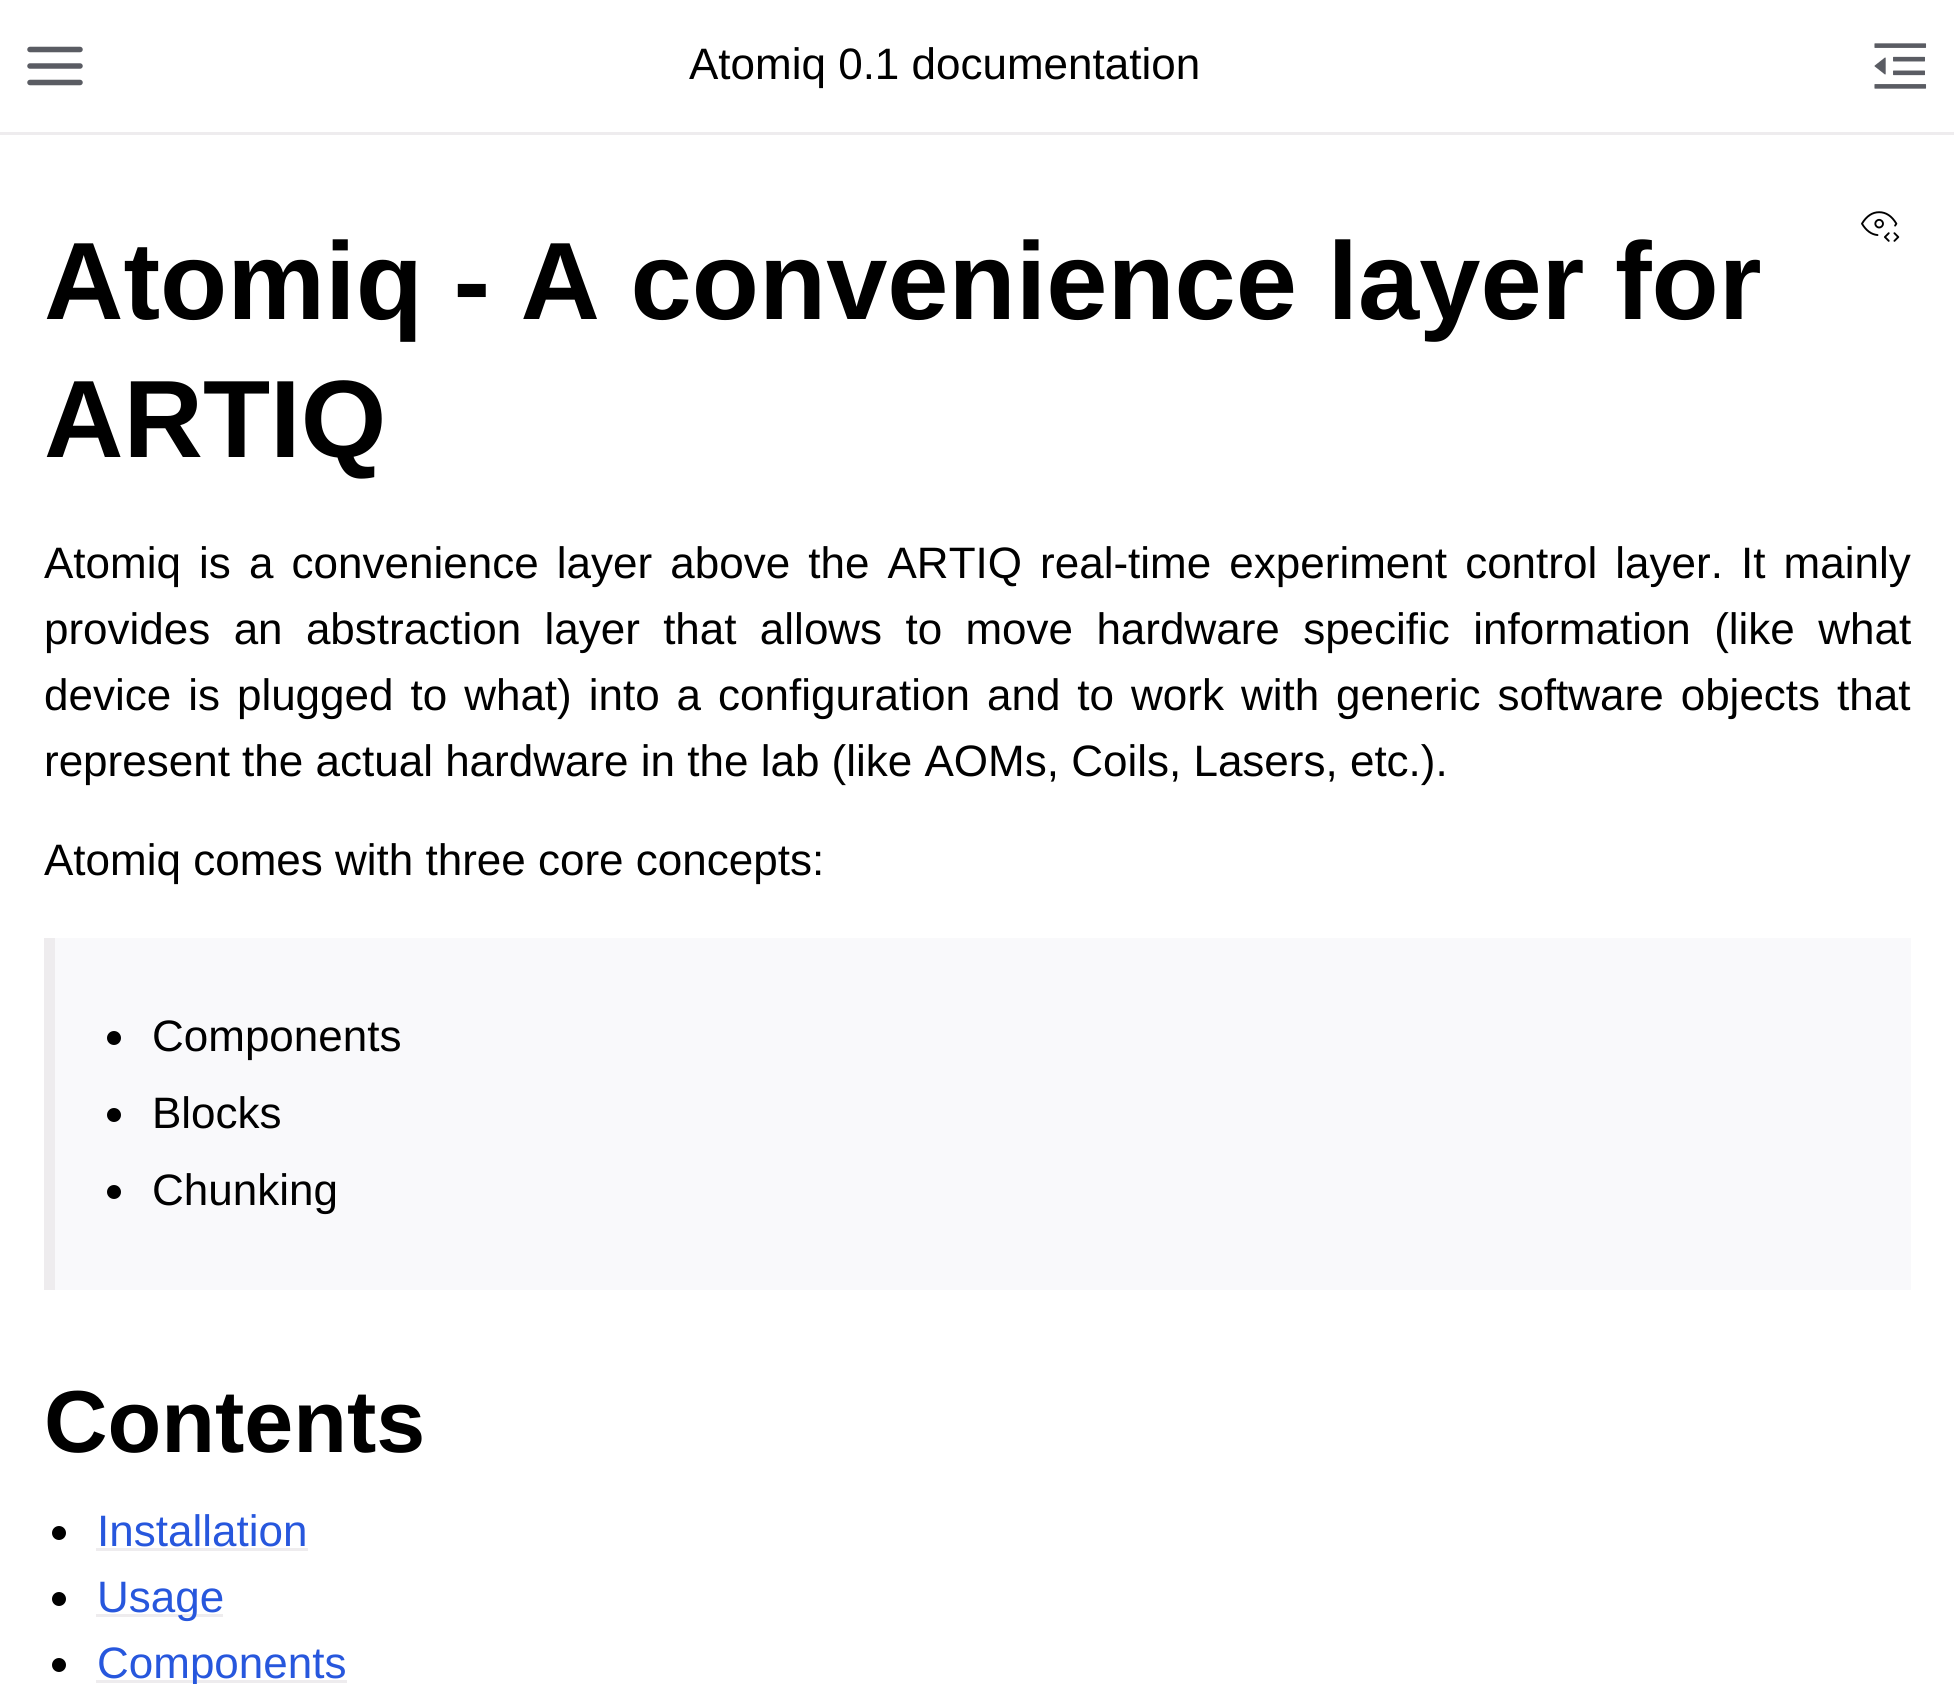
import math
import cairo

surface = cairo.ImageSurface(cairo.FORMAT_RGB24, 1954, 1684)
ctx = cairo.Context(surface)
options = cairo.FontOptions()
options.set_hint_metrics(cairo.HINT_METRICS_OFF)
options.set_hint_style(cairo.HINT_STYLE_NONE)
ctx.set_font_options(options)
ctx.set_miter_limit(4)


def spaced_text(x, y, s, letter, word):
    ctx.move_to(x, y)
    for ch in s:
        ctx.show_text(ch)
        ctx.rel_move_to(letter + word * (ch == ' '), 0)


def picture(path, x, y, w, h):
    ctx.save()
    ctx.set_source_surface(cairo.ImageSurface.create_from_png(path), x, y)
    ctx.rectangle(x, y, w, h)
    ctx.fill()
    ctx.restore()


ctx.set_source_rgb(1, 1, 1)
ctx.paint()
ctx.set_source_rgb(0.933, 0.922, 0.933)
ctx.rectangle(0, 132, 1954, 3)
ctx.fill()
ctx.new_path()
ctx.move_to(30, 66)
ctx.line_to(80, 66)
ctx.move_to(30, 49.5)
ctx.line_to(80, 49.5)
ctx.move_to(30, 82.5)
ctx.line_to(80, 82.5)
ctx.set_source_rgb(0.353, 0.361, 0.388)
ctx.set_line_width(5.5)
ctx.set_line_cap(cairo.LINE_CAP_ROUND)
ctx.set_line_join(cairo.LINE_JOIN_ROUND)
ctx.stroke()
ctx.select_font_face("Liberation Sans")
ctx.set_font_size(44)
ctx.set_source_rgb(0, 0, 0)
ctx.move_to(689, 79)
ctx.show_text("Atomiq 0.1 documentation")
picture("img1.png", 1874, 43, 53, 46)
picture("img2.png", 1861, 211, 39, 31)
ctx.select_font_face("Liberation Sans", cairo.FONT_SLANT_NORMAL, cairo.FONT_WEIGHT_BOLD)
ctx.set_font_size(110)
ctx.move_to(44, 319)
ctx.show_text("Atomiq - A convenience layer for")
ctx.move_to(44, 457)
ctx.show_text("ARTIQ")
ctx.select_font_face("Liberation Sans")
ctx.set_font_size(44)
spaced_text(44, 578, "Atomiq is a convenience layer above the ARTIQ real-time experiment control layer. It mainly", 0, 5.9)
spaced_text(44, 644, "provides an abstraction layer that allows to move hardware specific information (like what", 0, 11.1)
spaced_text(44, 710, "device is plugged to what) into a configuration and to work with generic software objects that", 0, 4.75)
ctx.move_to(44, 776)
ctx.show_text("represent the actual hardware in the lab (like AOMs, Coils, Lasers, etc.).")
ctx.move_to(44, 875)
ctx.show_text("Atomiq comes with three core concepts:")
ctx.set_source_rgb(0.973, 0.976, 0.984)
ctx.rectangle(55, 938, 1856, 352)
ctx.fill()
ctx.set_source_rgb(0.933, 0.922, 0.933)
ctx.rectangle(44, 938, 11, 352)
ctx.fill()
ctx.set_source_rgb(0, 0, 0)
ctx.arc(114, 1038, 7, 0, 2 * math.pi)
ctx.fill()
ctx.move_to(152, 1051)
ctx.show_text("Components")
ctx.new_path()
ctx.arc(114, 1115, 7, 0, 2 * math.pi)
ctx.fill()
ctx.move_to(152, 1128)
ctx.show_text("Blocks")
ctx.new_path()
ctx.arc(114, 1192, 7, 0, 2 * math.pi)
ctx.fill()
ctx.move_to(152, 1205)
ctx.show_text("Chunking")
ctx.select_font_face("Liberation Sans", cairo.FONT_SLANT_NORMAL, cairo.FONT_WEIGHT_BOLD)
ctx.set_font_size(88)
ctx.move_to(44, 1452)
ctx.show_text("Contents")
ctx.new_path()
ctx.arc(59, 1533, 7, 0, 2 * math.pi)
ctx.fill()
ctx.select_font_face("Liberation Sans")
ctx.set_font_size(44)
ctx.set_source_rgb(0.153, 0.341, 0.867)
ctx.move_to(97, 1546)
ctx.show_text("Installation")
ctx.set_source_rgb(0.933, 0.922, 0.933)
ctx.rectangle(96, 1548, 212, 3)
ctx.fill()
ctx.set_source_rgb(0, 0, 0)
ctx.arc(59, 1599, 7, 0, 2 * math.pi)
ctx.fill()
ctx.set_source_rgb(0.933, 0.922, 0.933)
ctx.rectangle(96, 1614, 127, 3)
ctx.fill()
ctx.set_source_rgb(0.153, 0.341, 0.867)
ctx.move_to(97, 1612)
ctx.show_text("Usage")
ctx.set_source_rgb(0, 0, 0)
ctx.new_path()
ctx.arc(59, 1665, 7, 0, 2 * math.pi)
ctx.fill()
ctx.set_source_rgb(0.933, 0.922, 0.933)
ctx.rectangle(96, 1680, 251, 3)
ctx.fill()
ctx.set_source_rgb(0.153, 0.341, 0.867)
ctx.move_to(97, 1678)
ctx.show_text("Components")
surface.write_to_png("page.png")
